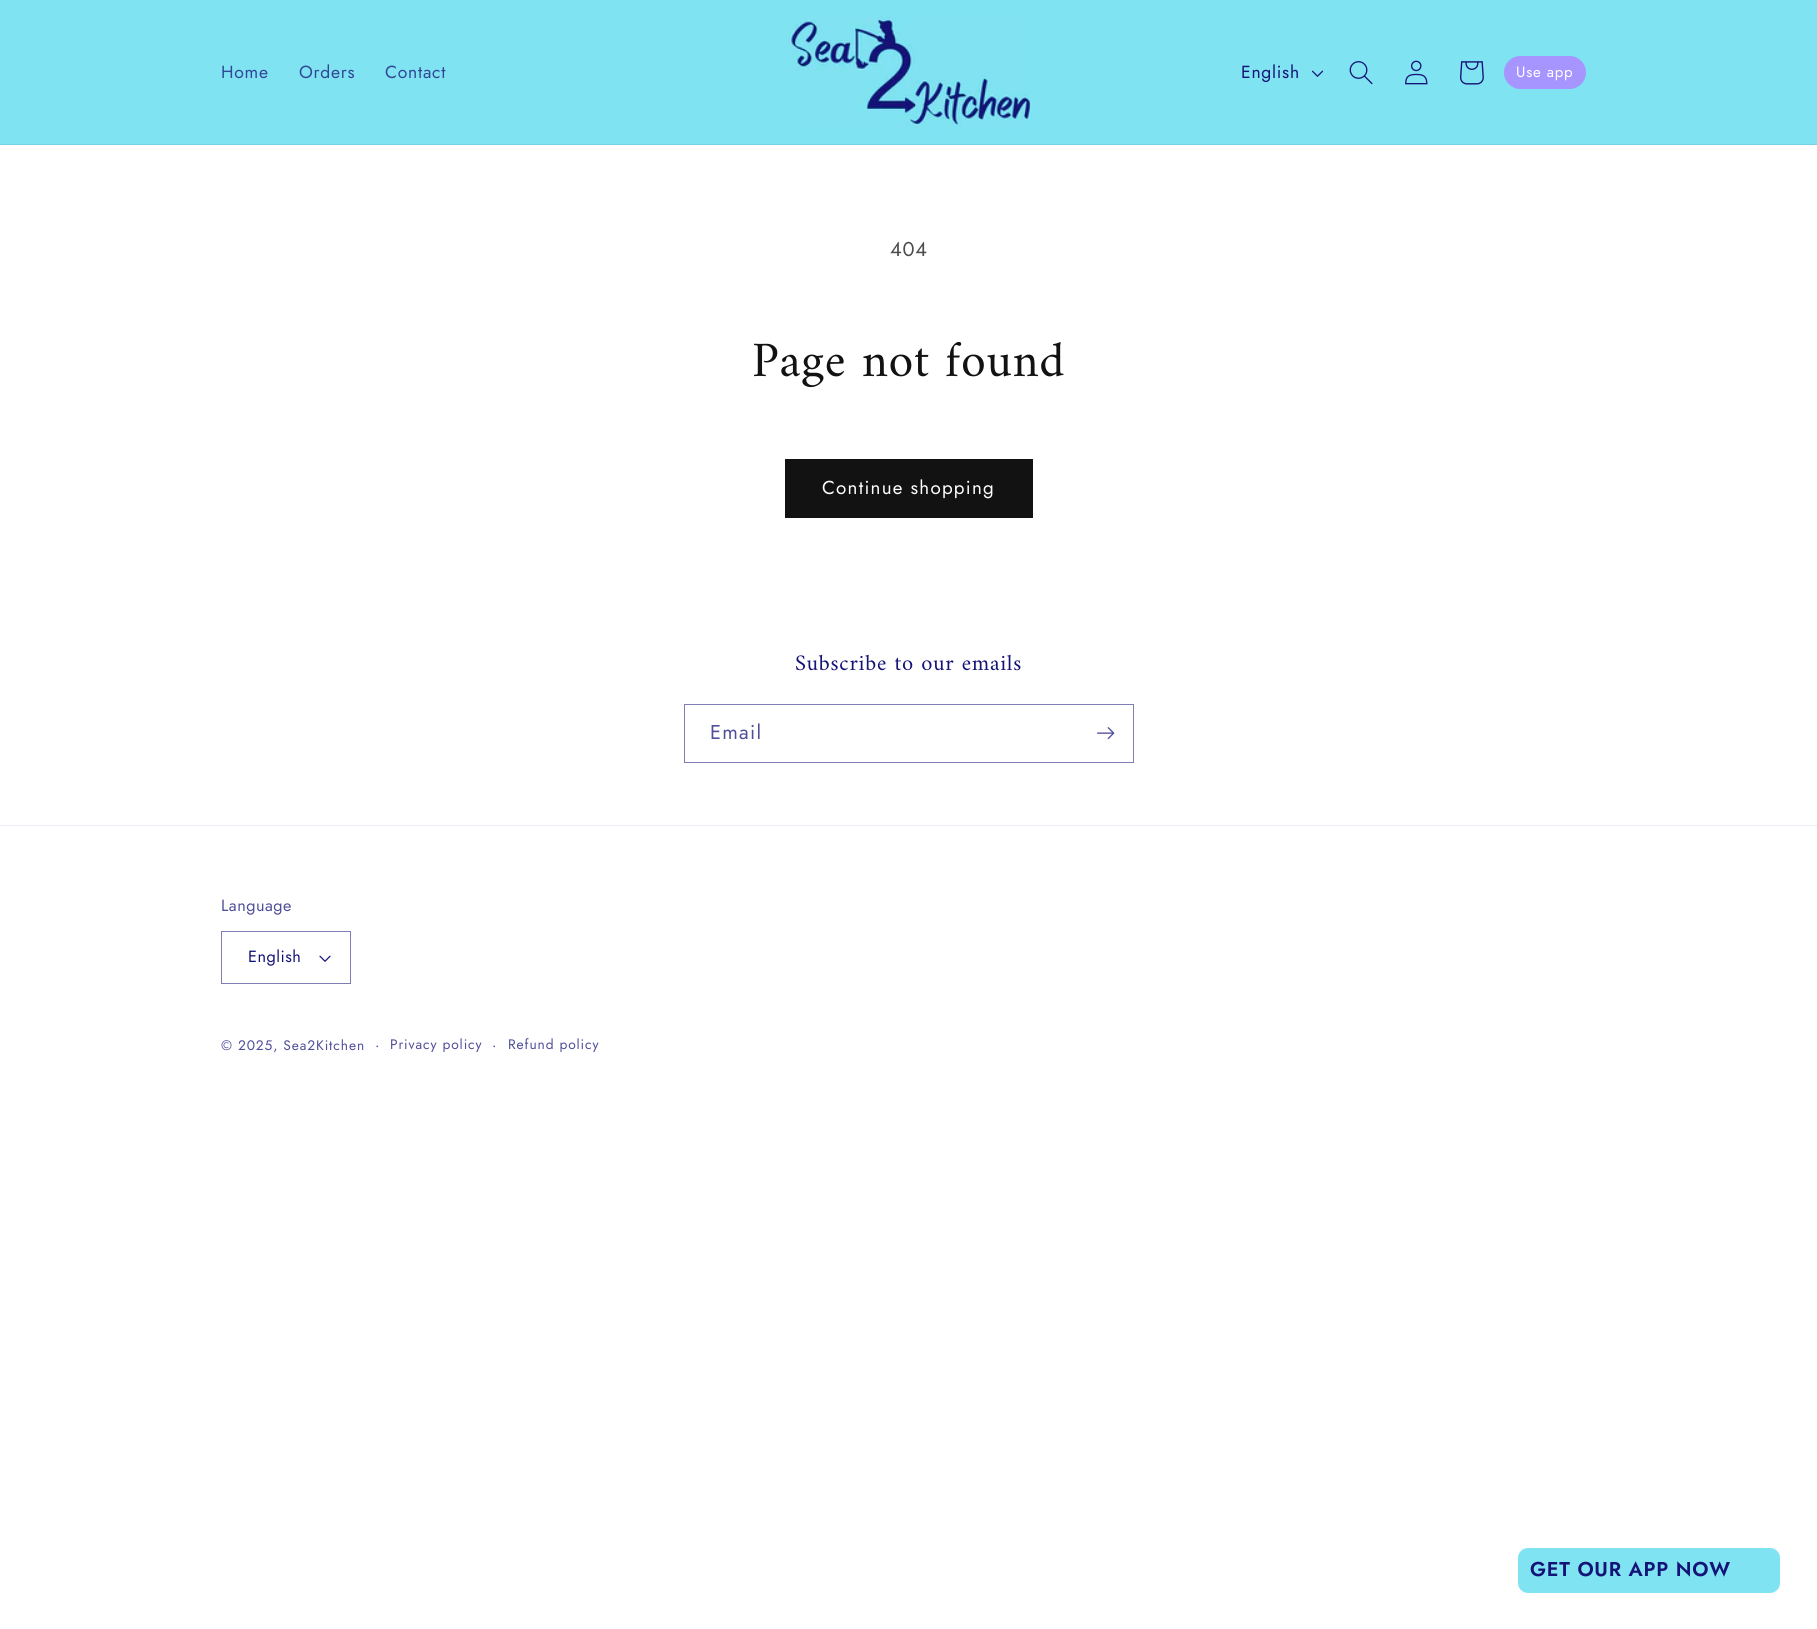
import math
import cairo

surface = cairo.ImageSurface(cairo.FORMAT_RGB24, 1817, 1629)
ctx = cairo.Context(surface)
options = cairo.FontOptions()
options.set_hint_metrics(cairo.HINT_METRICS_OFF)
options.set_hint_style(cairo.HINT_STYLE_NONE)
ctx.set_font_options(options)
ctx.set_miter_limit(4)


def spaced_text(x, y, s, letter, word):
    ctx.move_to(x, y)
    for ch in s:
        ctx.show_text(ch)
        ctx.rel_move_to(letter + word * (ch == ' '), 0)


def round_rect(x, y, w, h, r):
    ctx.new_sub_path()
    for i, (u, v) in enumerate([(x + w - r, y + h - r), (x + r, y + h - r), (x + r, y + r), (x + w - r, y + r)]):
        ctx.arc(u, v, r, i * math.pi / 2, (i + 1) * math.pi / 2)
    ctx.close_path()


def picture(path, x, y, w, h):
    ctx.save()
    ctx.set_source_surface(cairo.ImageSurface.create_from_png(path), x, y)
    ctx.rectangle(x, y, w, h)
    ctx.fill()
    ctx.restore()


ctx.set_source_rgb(1, 1, 1)
ctx.paint()
ctx.set_source_rgb(0.502, 0.89, 0.949)
ctx.rectangle(0, 0, 1817, 144)
ctx.fill()
ctx.set_source_rgb(0.467, 0.824, 0.91)
ctx.rectangle(0, 144, 1817, 1)
ctx.fill()
ctx.select_font_face("Jost")
ctx.set_font_size(17.5)
ctx.set_source_rgb(0.188, 0.278, 0.588)
spaced_text(221, 78, "Home", 0.75, 0)
spaced_text(299, 78, "Orders", 0.75, 0)
spaced_text(385, 78, "Contact", 0.75, 0)
picture("img1.png", 789, 16, 243, 114)
ctx.set_source_rgb(0.082, 0.075, 0.467)
spaced_text(1241, 78, "English", 0.75, 0)
picture("img2.png", 1311, 70, 13, 7)
picture("img3.png", 1349, 61, 24, 24)
picture("img4.png", 1405, 60, 23, 25)
picture("img5.png", 1460, 61, 24, 24)
ctx.set_source_rgb(0.651, 0.58, 1)
round_rect(1504, 56, 82, 33, 16.5)
ctx.fill()
ctx.set_font_size(15)
ctx.set_source_rgb(1, 1, 1)
spaced_text(1516, 77, "Use app", 0.75, 0)
ctx.set_font_size(20)
ctx.set_source_rgb(0.302, 0.302, 0.302)
spaced_text(890, 256, "404", 0.75, 0)
ctx.select_font_face("Amiri")
ctx.set_font_size(50)
ctx.set_source_rgb(0.071, 0.071, 0.071)
spaced_text(752, 376, "Page not found", 0.75, 0)
ctx.rectangle(785, 459, 248, 59)
ctx.fill()
ctx.select_font_face("Jost")
ctx.set_font_size(18.75)
ctx.set_source_rgb(1, 1, 1)
spaced_text(822, 494, "Continue shopping", 1.25, 0)
ctx.select_font_face("Amiri")
ctx.set_font_size(22.5)
ctx.set_source_rgb(0.082, 0.075, 0.467)
spaced_text(795, 670, "Subscribe to our emails", 0.75, 0)
ctx.rectangle(684.5, 704.5, 449, 58)
ctx.set_source_rgb(0.494, 0.49, 0.706)
ctx.set_line_width(1)
ctx.stroke()
ctx.select_font_face("Jost")
ctx.set_font_size(20)
ctx.set_source_rgb(0.314, 0.306, 0.6)
spaced_text(710, 739, "Email", 1.25, 0)
picture("img6.png", 1097, 727, 18, 13)
ctx.set_source_rgb(0.925, 0.925, 0.957)
ctx.rectangle(0, 825, 1817, 1)
ctx.fill()
ctx.set_font_size(16.25)
ctx.set_source_rgb(0.314, 0.306, 0.6)
spaced_text(221, 911, "Language", 0.5, 0)
picture("img7.png", 319, 955, 12, 7)
ctx.rectangle(221.5, 931.5, 129, 52)
ctx.set_source_rgb(0.494, 0.49, 0.706)
ctx.stroke()
ctx.set_source_rgb(0.082, 0.075, 0.467)
spaced_text(248, 962, "English", 0.5, 0)
ctx.set_font_size(13.75)
ctx.set_source_rgb(0.314, 0.306, 0.6)
spaced_text(221, 1050, "© 2025, Sea2Kitchen", 0.9, 0)
ctx.set_font_size(15)
spaced_text(375, 1050, "·", 0.9, 0)
ctx.set_font_size(13.75)
spaced_text(390, 1049, "Privacy policy", 0.9, 0)
ctx.set_font_size(15)
spaced_text(492, 1050, "·", 0.9, 0)
ctx.set_font_size(13.75)
spaced_text(508, 1049, "Refund policy", 0.9, 0)
ctx.set_source_rgb(0.502, 0.89, 0.949)
round_rect(1518, 1548, 262, 45, 10)
ctx.fill()
ctx.select_font_face("Jost SemiBold")
ctx.set_font_size(20)
ctx.set_source_rgb(0.082, 0.075, 0.467)
spaced_text(1530, 1576, "GET OUR APP NOW", 0.75, 0)
surface.write_to_png("page.png")
